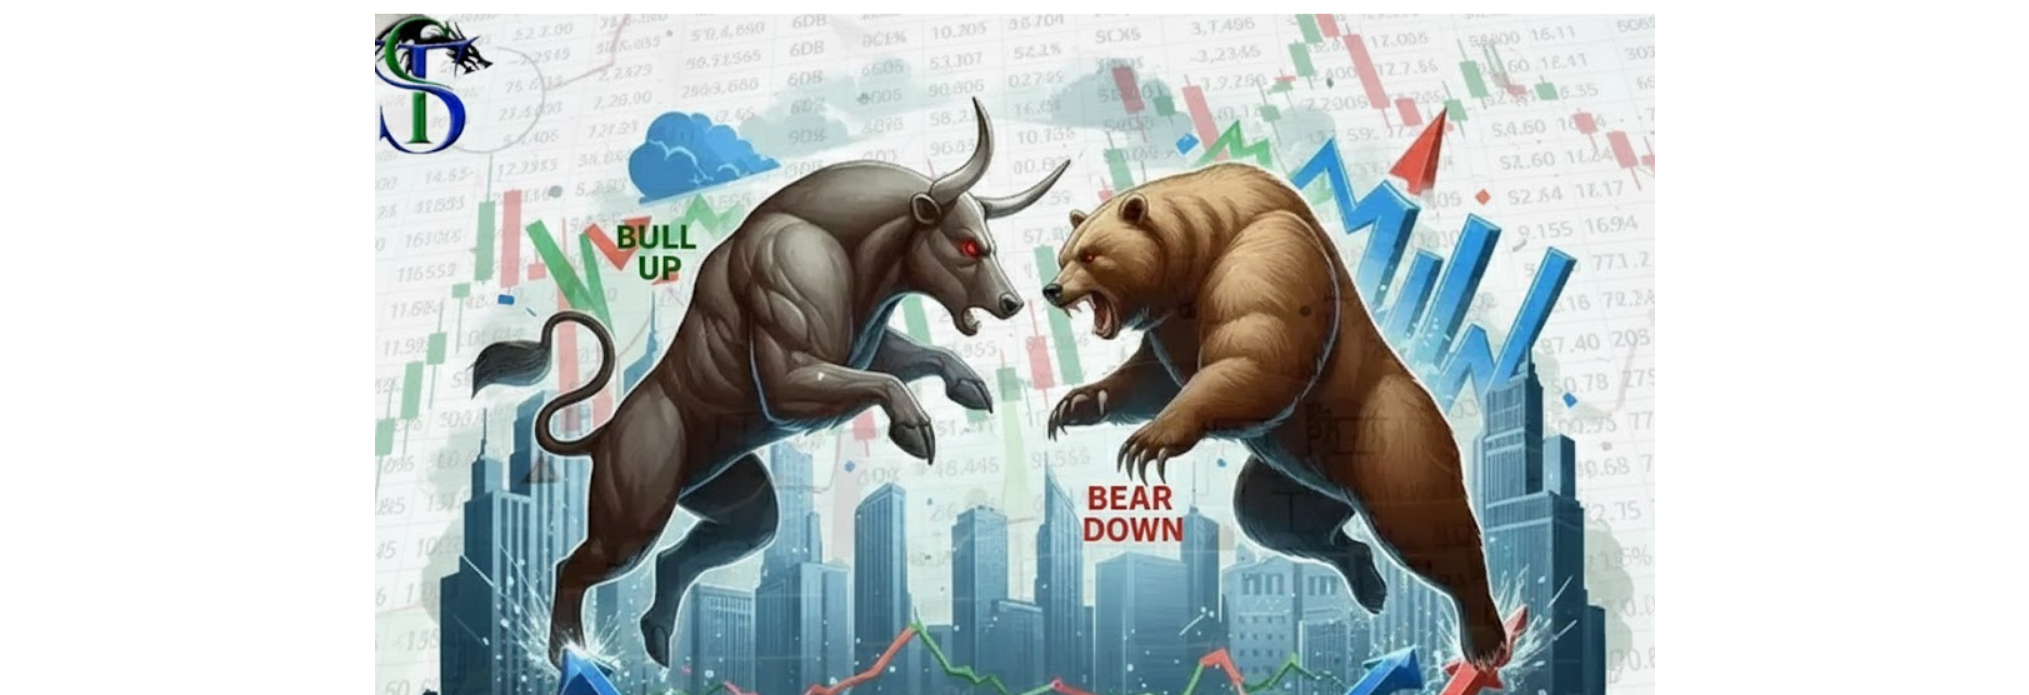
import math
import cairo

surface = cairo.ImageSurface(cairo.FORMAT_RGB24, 2029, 695)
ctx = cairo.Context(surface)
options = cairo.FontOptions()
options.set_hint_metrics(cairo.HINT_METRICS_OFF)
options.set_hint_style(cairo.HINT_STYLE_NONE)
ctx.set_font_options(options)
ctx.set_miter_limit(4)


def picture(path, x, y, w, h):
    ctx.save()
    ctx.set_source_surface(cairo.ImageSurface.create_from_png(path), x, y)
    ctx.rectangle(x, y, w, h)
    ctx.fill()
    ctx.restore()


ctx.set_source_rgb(1, 1, 1)
ctx.paint()
picture("img1.png", 375, 13, 1280, 682)
surface.write_to_png("page.png")
